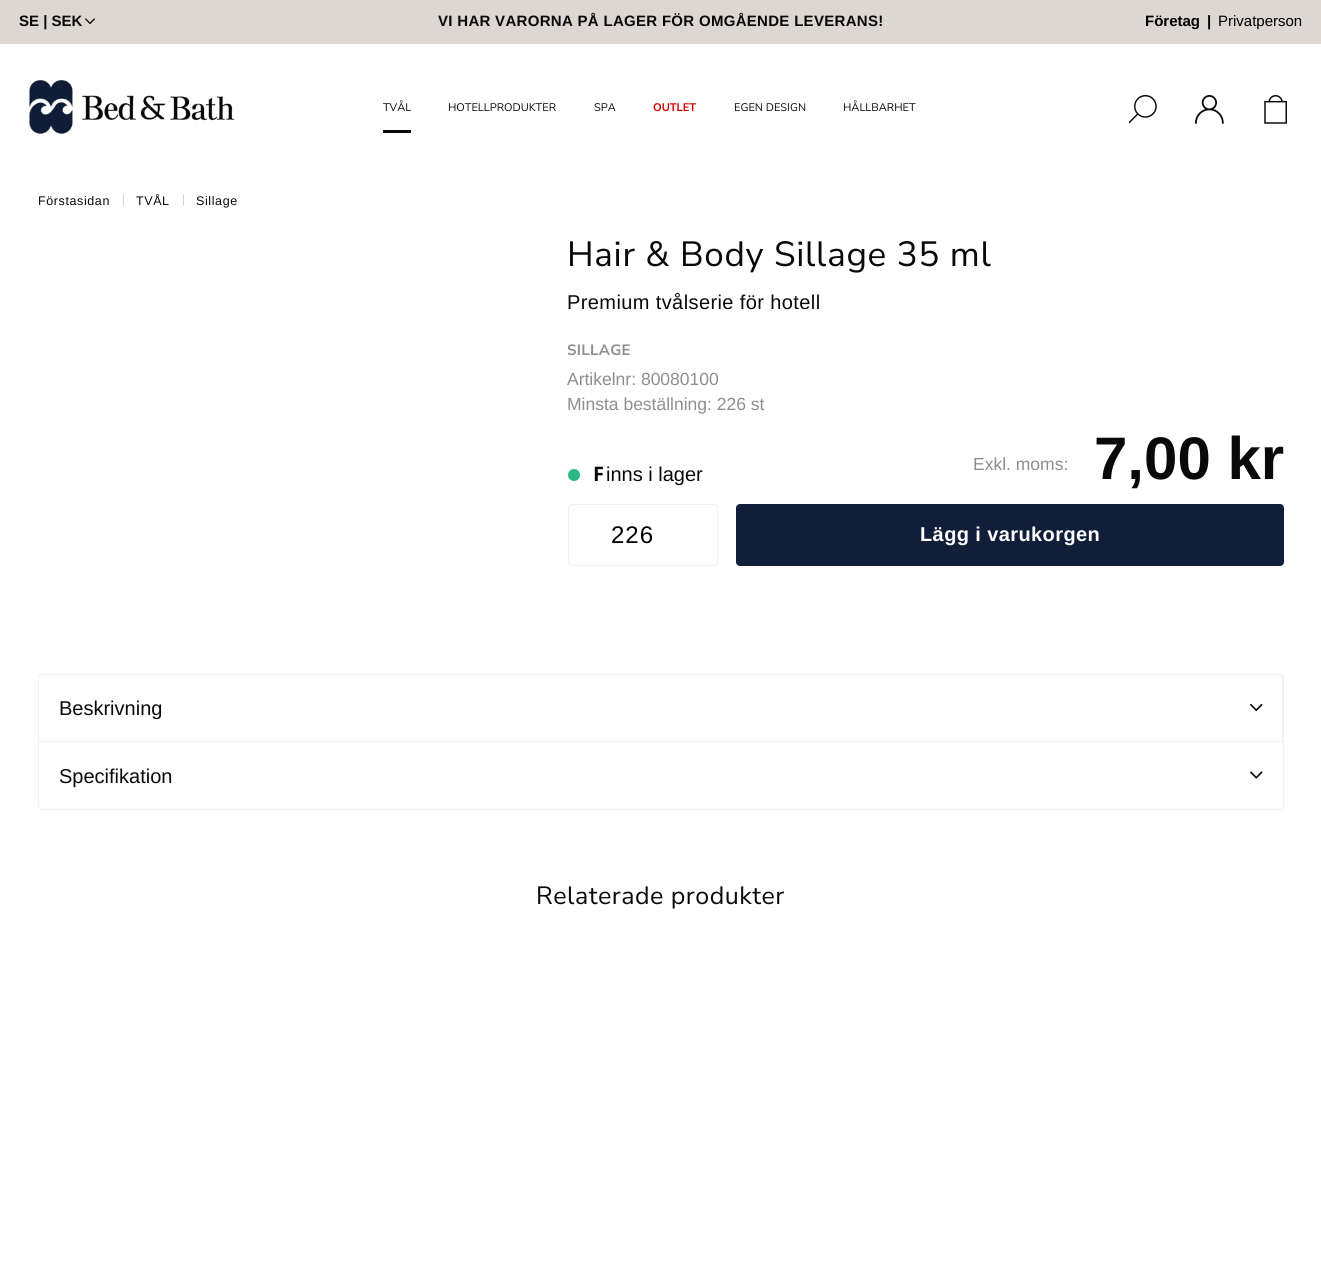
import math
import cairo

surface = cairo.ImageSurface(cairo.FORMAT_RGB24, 1321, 1268)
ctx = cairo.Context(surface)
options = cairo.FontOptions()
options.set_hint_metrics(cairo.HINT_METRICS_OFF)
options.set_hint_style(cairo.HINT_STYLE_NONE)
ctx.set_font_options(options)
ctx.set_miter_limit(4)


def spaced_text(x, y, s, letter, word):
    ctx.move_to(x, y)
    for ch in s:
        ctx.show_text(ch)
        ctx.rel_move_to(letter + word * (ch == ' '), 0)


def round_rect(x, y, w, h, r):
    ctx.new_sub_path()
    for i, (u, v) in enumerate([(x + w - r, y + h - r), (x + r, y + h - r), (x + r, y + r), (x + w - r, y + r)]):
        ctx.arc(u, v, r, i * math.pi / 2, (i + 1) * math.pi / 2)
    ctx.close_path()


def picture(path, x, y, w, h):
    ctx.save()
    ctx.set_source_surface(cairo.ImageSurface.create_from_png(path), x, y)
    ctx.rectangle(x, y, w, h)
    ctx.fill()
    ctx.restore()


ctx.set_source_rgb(1, 1, 1)
ctx.paint()
ctx.set_source_rgb(0.863, 0.843, 0.82)
ctx.rectangle(0, 0, 1321, 44)
ctx.fill()
ctx.select_font_face("Arimo", cairo.FONT_SLANT_NORMAL, cairo.FONT_WEIGHT_BOLD)
ctx.set_font_size(15)
ctx.set_source_rgb(0.039, 0.039, 0.039)
ctx.move_to(19, 26)
ctx.show_text("SE | SEK")
picture("img1.png", 85, 18, 10, 7)
spaced_text(438, 26, "VI HAR VARORNA PÅ LAGER FÖR OMGÅENDE LEVERANS!", 0.3, 0)
ctx.set_source_rgb(0, 0, 0)
ctx.move_to(1145, 26)
ctx.show_text("Företag")
ctx.move_to(1207, 26)
ctx.show_text("|")
ctx.select_font_face("Arimo")
ctx.move_to(1218, 26)
ctx.show_text("Privatperson")
picture("img2.png", 29, 80, 206, 54)
ctx.select_font_face("Nunito Sans")
ctx.set_font_size(11)
ctx.set_source_rgb(0.039, 0.039, 0.039)
ctx.move_to(383, 111)
ctx.show_text("TVÅL")
ctx.rectangle(383, 130, 28, 3)
ctx.fill()
ctx.move_to(448, 111)
ctx.show_text("HOTELLPRODUKTER")
ctx.move_to(594, 111)
ctx.show_text("SPA")
ctx.select_font_face("Nunito Sans", cairo.FONT_SLANT_NORMAL, cairo.FONT_WEIGHT_BOLD)
ctx.set_source_rgb(0.816, 0, 0)
ctx.move_to(653, 111)
ctx.show_text("OUTLET")
ctx.select_font_face("Nunito Sans")
ctx.set_source_rgb(0.039, 0.039, 0.039)
ctx.move_to(734, 111)
ctx.show_text("EGEN DESIGN")
ctx.move_to(843, 111)
ctx.show_text("HÅLLBARHET")
picture("img3.png", 1129, 95, 28, 29)
picture("img4.png", 1195, 95, 29, 29)
picture("img5.png", 1264, 95, 23, 29)
ctx.select_font_face("Arimo")
ctx.set_font_size(12.5)
spaced_text(38, 205, "Förstasidan", 0.6, 0)
ctx.set_source_rgb(0.824, 0.824, 0.824)
ctx.rectangle(123, 194, 1, 12)
ctx.fill()
ctx.set_source_rgb(0.039, 0.039, 0.039)
spaced_text(136, 205, "TVÅL", 0.6, 0)
ctx.set_source_rgb(0.824, 0.824, 0.824)
ctx.rectangle(183, 194, 1, 12)
ctx.fill()
ctx.set_source_rgb(0.039, 0.039, 0.039)
spaced_text(196, 205, "Sillage", 0.6, 0)
ctx.select_font_face("Nunito Sans")
ctx.set_font_size(35)
spaced_text(567, 266, "Hair & Body Sillage 35 ml", 0.7, 0)
ctx.select_font_face("Arimo")
ctx.set_font_size(20)
spaced_text(567, 309, "Premium tvålserie för hotell", 0.4, 0)
ctx.select_font_face("Nunito Sans", cairo.FONT_SLANT_NORMAL, cairo.FONT_WEIGHT_BOLD)
ctx.set_font_size(15)
ctx.set_source_rgb(0.557, 0.557, 0.557)
spaced_text(567, 355, "SILLAGE", 0.3, 0)
ctx.select_font_face("Arimo")
ctx.set_font_size(17.5)
ctx.move_to(567, 385)
ctx.show_text("Artikelnr: 80080100")
ctx.move_to(567, 410)
ctx.show_text("Minsta beställning: 226 st")
ctx.set_source_rgb(0.169, 0.722, 0.522)
ctx.new_path()
ctx.arc(574, 475, 6, 0, 2 * math.pi)
ctx.fill()
ctx.select_font_face("Noto Sans", cairo.FONT_SLANT_NORMAL, cairo.FONT_WEIGHT_BOLD)
ctx.set_font_size(20)
ctx.set_source_rgb(0.039, 0.039, 0.039)
ctx.move_to(593, 481)
ctx.show_text("F")
ctx.select_font_face("Arimo")
ctx.move_to(606, 481)
ctx.show_text("inns i lager")
ctx.set_font_size(17.5)
ctx.set_source_rgb(0.557, 0.557, 0.557)
ctx.move_to(973, 470)
ctx.show_text("Exkl. moms:")
ctx.select_font_face("Arimo", cairo.FONT_SLANT_NORMAL, cairo.FONT_WEIGHT_BOLD)
ctx.set_font_size(60)
ctx.set_source_rgb(0.039, 0.039, 0.039)
ctx.move_to(1094, 479)
ctx.show_text("7,00 kr")
round_rect(568.5, 504.5, 149, 61, 3.5)
ctx.set_source_rgb(0.949, 0.949, 0.949)
ctx.set_line_width(1)
ctx.stroke()
ctx.select_font_face("Arimo")
ctx.set_font_size(24)
ctx.set_source_rgb(0, 0, 0)
spaced_text(611, 543, "226", 1, 0)
ctx.set_source_rgb(0.063, 0.118, 0.224)
round_rect(736, 504, 548, 62, 4)
ctx.fill()
ctx.select_font_face("Arimo", cairo.FONT_SLANT_NORMAL, cairo.FONT_WEIGHT_BOLD)
ctx.set_font_size(20)
ctx.set_source_rgb(1, 1, 1)
spaced_text(920, 541, "Lägg i varukorgen", 0.4, 0)
ctx.set_source_rgb(0.949, 0.949, 0.949)
ctx.set_fill_rule(cairo.FILL_RULE_EVEN_ODD)
ctx.new_path()
ctx.move_to(41, 674)
ctx.line_to(1280, 674)
ctx.curve_to(1282, 674, 1284, 675, 1284, 678)
ctx.line_to(1284, 741)
ctx.line_to(38, 741)
ctx.line_to(38, 678)
ctx.curve_to(38, 675, 39, 674, 41, 674)
ctx.close_path()
ctx.move_to(41, 675)
ctx.line_to(1280, 675)
ctx.curve_to(1281, 675, 1282, 676, 1282, 678)
ctx.line_to(1282, 741)
ctx.line_to(39, 741)
ctx.line_to(39, 678)
ctx.curve_to(39, 676, 40, 675, 41, 675)
ctx.close_path()
ctx.fill()
ctx.select_font_face("Arimo")
ctx.set_source_rgb(0.039, 0.039, 0.039)
ctx.move_to(59, 715)
ctx.show_text("Beskrivning")
picture("img6.png", 1250, 703, 13, 9)
ctx.new_path()
ctx.move_to(38.5, 741.5)
ctx.line_to(1283.5, 741.5)
ctx.line_to(1283.5, 806)
ctx.curve_to(1283.5, 808, 1282, 809.5, 1280, 809.5)
ctx.line_to(42, 809.5)
ctx.curve_to(40, 809.5, 38.5, 808, 38.5, 806)
ctx.close_path()
ctx.set_source_rgb(0.949, 0.949, 0.949)
ctx.stroke()
ctx.set_source_rgb(0.039, 0.039, 0.039)
ctx.move_to(59, 783)
ctx.show_text("Specifikation")
picture("img7.png", 1250, 771, 13, 8)
ctx.select_font_face("Nunito Sans")
ctx.set_font_size(25)
spaced_text(536, 904, "Relaterade produkter", 0.5, 0)
surface.write_to_png("page.png")
